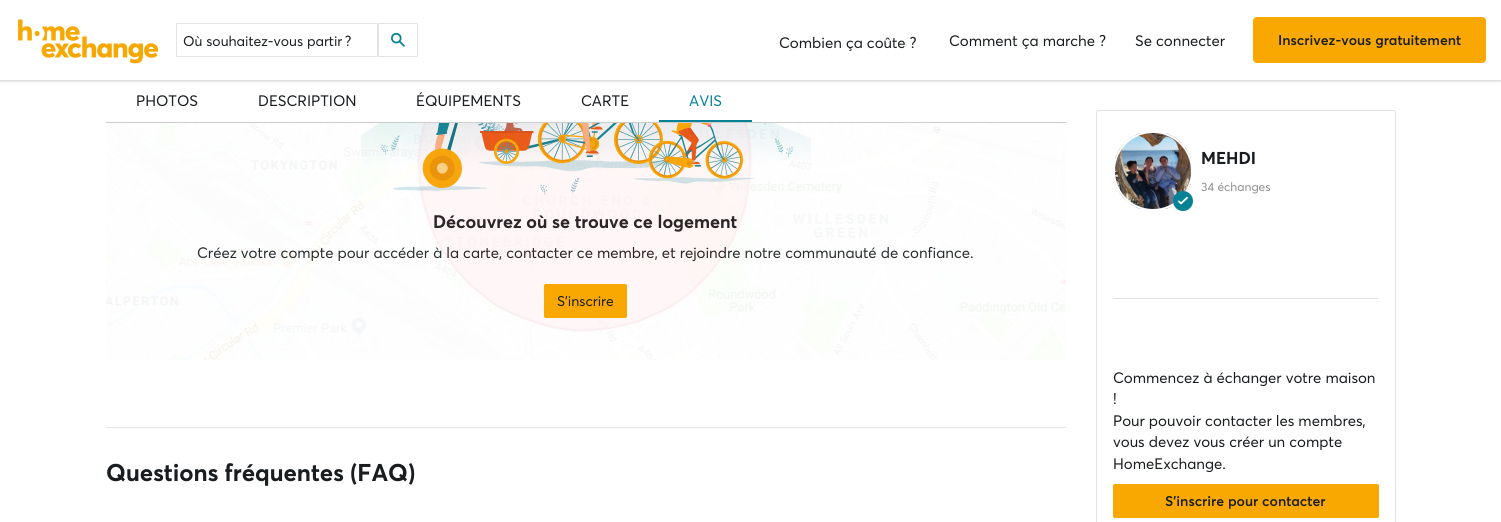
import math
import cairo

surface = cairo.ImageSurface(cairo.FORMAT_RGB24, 1501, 522)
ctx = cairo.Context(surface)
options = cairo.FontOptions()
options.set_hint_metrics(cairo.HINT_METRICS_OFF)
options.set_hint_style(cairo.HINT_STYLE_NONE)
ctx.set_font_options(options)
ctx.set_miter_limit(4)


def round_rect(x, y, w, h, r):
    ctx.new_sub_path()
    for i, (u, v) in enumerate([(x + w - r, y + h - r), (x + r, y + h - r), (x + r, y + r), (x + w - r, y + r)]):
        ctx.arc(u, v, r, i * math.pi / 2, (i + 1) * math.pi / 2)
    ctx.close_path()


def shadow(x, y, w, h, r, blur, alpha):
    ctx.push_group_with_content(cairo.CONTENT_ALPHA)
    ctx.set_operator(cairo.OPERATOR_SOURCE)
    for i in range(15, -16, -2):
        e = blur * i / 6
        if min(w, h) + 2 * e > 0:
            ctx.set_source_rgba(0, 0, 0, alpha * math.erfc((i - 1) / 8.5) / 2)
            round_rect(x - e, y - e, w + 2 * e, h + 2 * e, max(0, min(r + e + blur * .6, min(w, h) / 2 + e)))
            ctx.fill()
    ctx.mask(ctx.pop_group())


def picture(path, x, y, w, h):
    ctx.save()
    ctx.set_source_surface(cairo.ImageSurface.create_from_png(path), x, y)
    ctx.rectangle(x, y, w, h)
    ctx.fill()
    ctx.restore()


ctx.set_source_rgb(1, 1, 1)
ctx.paint()
ctx.set_source_rgb(0.804, 0.804, 0.804)
shadow(0, 1, 1501, 80, 0, 1.5, 1)
ctx.set_source_rgb(1, 1, 1)
ctx.rectangle(0, 0, 1501, 80)
ctx.fill()
picture("img1.png", 18, 19, 141, 45)
ctx.new_path()
ctx.move_to(176.5, 23.5)
ctx.line_to(376, 23.5)
ctx.curve_to(377, 23.5, 377.5, 24, 377.5, 25)
ctx.line_to(377.5, 55)
ctx.curve_to(377.5, 56, 377, 56.5, 376, 56.5)
ctx.line_to(176.5, 56.5)
ctx.close_path()
ctx.set_source_rgb(0.89, 0.89, 0.89)
ctx.set_line_width(1)
ctx.stroke()
ctx.set_source_rgb(1, 1, 1)
ctx.rectangle(376, 24, 1, 32)
ctx.fill()
ctx.select_font_face("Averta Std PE")
ctx.set_font_size(14)
ctx.set_source_rgb(0.098, 0.114, 0.122)
ctx.move_to(183, 46)
ctx.show_text("Où souhaitez-vous partir ?")
ctx.new_path()
ctx.move_to(378.5, 23.5)
ctx.line_to(416, 23.5)
ctx.curve_to(417, 23.5, 417.5, 24, 417.5, 25)
ctx.line_to(417.5, 55)
ctx.curve_to(417.5, 56, 417, 56.5, 416, 56.5)
ctx.line_to(378.5, 56.5)
ctx.close_path()
ctx.set_source_rgb(0.89, 0.89, 0.89)
ctx.stroke()
picture("img2.png", 391, 32, 14, 15)
ctx.set_font_size(15)
ctx.set_source_rgb(0.098, 0.114, 0.122)
ctx.move_to(779, 48)
ctx.show_text("Combien ça coûte ?")
ctx.move_to(949, 46)
ctx.show_text("Comment ça marche ?")
ctx.move_to(1135, 46)
ctx.show_text("Se connecter")
ctx.set_source_rgb(0.969, 0.659, 0)
round_rect(1253.5, 17.5, 232, 45, 3.5)
ctx.fill_preserve()
ctx.stroke()
ctx.select_font_face("Averta Std PE SemiBold")
ctx.set_font_size(14)
ctx.set_source_rgb(0.098, 0.114, 0.122)
ctx.move_to(1278, 45)
ctx.show_text("Inscrivez-vous gratuitement")
ctx.set_source_rgb(0.8, 0.8, 0.8)
ctx.rectangle(106, 122, 960, 1)
ctx.fill()
ctx.select_font_face("Averta Std PE")
ctx.set_font_size(15)
ctx.set_source_rgb(0.098, 0.114, 0.122)
ctx.move_to(136, 106)
ctx.show_text("PHOTOS")
ctx.move_to(258, 106)
ctx.show_text("DESCRIPTION")
ctx.move_to(416, 106)
ctx.show_text("ÉQUIPEMENTS")
ctx.move_to(581, 106)
ctx.show_text("CARTE")
ctx.set_source_rgb(0.024, 0.51, 0.584)
ctx.rectangle(659, 120, 93, 2)
ctx.fill()
ctx.move_to(689, 106)
ctx.show_text("AVIS")
picture("img4.png", 361, 123, 450, 72)
ctx.select_font_face("Averta Std PE", cairo.FONT_SLANT_NORMAL, cairo.FONT_WEIGHT_BOLD)
ctx.set_font_size(18)
ctx.set_source_rgb(0.098, 0.114, 0.122)
ctx.move_to(433, 228)
ctx.show_text("Découvrez où se trouve ce logement")
ctx.select_font_face("Averta Std PE")
ctx.set_font_size(15)
ctx.move_to(197, 258)
ctx.show_text("Créez votre compte pour accéder à la carte, contacter ce membre, et rejoindre notre communauté de confiance.")
picture("img3.png", 106, 123, 960, 237)
ctx.set_source_rgb(0.969, 0.659, 0)
round_rect(544.5, 284.5, 82, 33, 1.5)
ctx.fill_preserve()
ctx.stroke()
ctx.set_font_size(14)
ctx.set_source_rgb(0.098, 0.114, 0.122)
ctx.move_to(557, 306)
ctx.show_text("S’inscrire")
ctx.set_source_rgb(0.89, 0.89, 0.89)
ctx.rectangle(106, 427, 960, 1)
ctx.fill()
ctx.select_font_face("Averta Std PE", cairo.FONT_SLANT_NORMAL, cairo.FONT_WEIGHT_BOLD)
ctx.set_font_size(24)
ctx.set_source_rgb(0.098, 0.114, 0.122)
ctx.move_to(106, 481)
ctx.show_text("Questions fréquentes (FAQ)")
round_rect(1096.5, 110.5, 299, 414, 1.5)
ctx.set_source_rgb(0.89, 0.89, 0.89)
ctx.stroke()
picture("img5.png", 1115, 133, 76, 76)
ctx.arc(1153, 171, 39, 0, 2 * math.pi)
ctx.set_source_rgb(1, 1, 1)
ctx.set_line_width(2)
ctx.stroke()
ctx.set_source_rgb(0.024, 0.51, 0.584)
ctx.arc(1183, 201, 10, 0, 2 * math.pi)
ctx.fill()
picture("img6.png", 1178, 197, 10, 8)
ctx.set_font_size(17)
ctx.set_source_rgb(0.098, 0.114, 0.122)
ctx.move_to(1201, 164)
ctx.show_text("MEHDI")
ctx.select_font_face("Averta Std PE")
ctx.set_font_size(12)
ctx.set_source_rgb(0.545, 0.545, 0.545)
ctx.move_to(1201, 191)
ctx.show_text("34 échanges")
ctx.set_source_rgb(0.89, 0.89, 0.89)
ctx.rectangle(1113, 298, 266, 1)
ctx.fill()
ctx.set_font_size(15)
ctx.set_source_rgb(0.098, 0.114, 0.122)
ctx.move_to(1113, 383)
ctx.show_text("Commencez à échanger votre maison")
ctx.move_to(1113, 404)
ctx.show_text("!")
ctx.move_to(1113, 426)
ctx.show_text("Pour pouvoir contacter les membres,")
ctx.move_to(1113, 447)
ctx.show_text("vous devez vous créer un compte")
ctx.move_to(1113, 469)
ctx.show_text("HomeExchange.")
ctx.set_source_rgb(0.969, 0.659, 0)
round_rect(1113.5, 484.5, 265, 33, 1.5)
ctx.fill_preserve()
ctx.set_line_width(1)
ctx.stroke()
ctx.select_font_face("Averta Std PE SemiBold")
ctx.set_font_size(14)
ctx.set_source_rgb(0.098, 0.114, 0.122)
ctx.move_to(1165, 506)
ctx.show_text("S'inscrire pour contacter")
surface.write_to_png("page.png")
